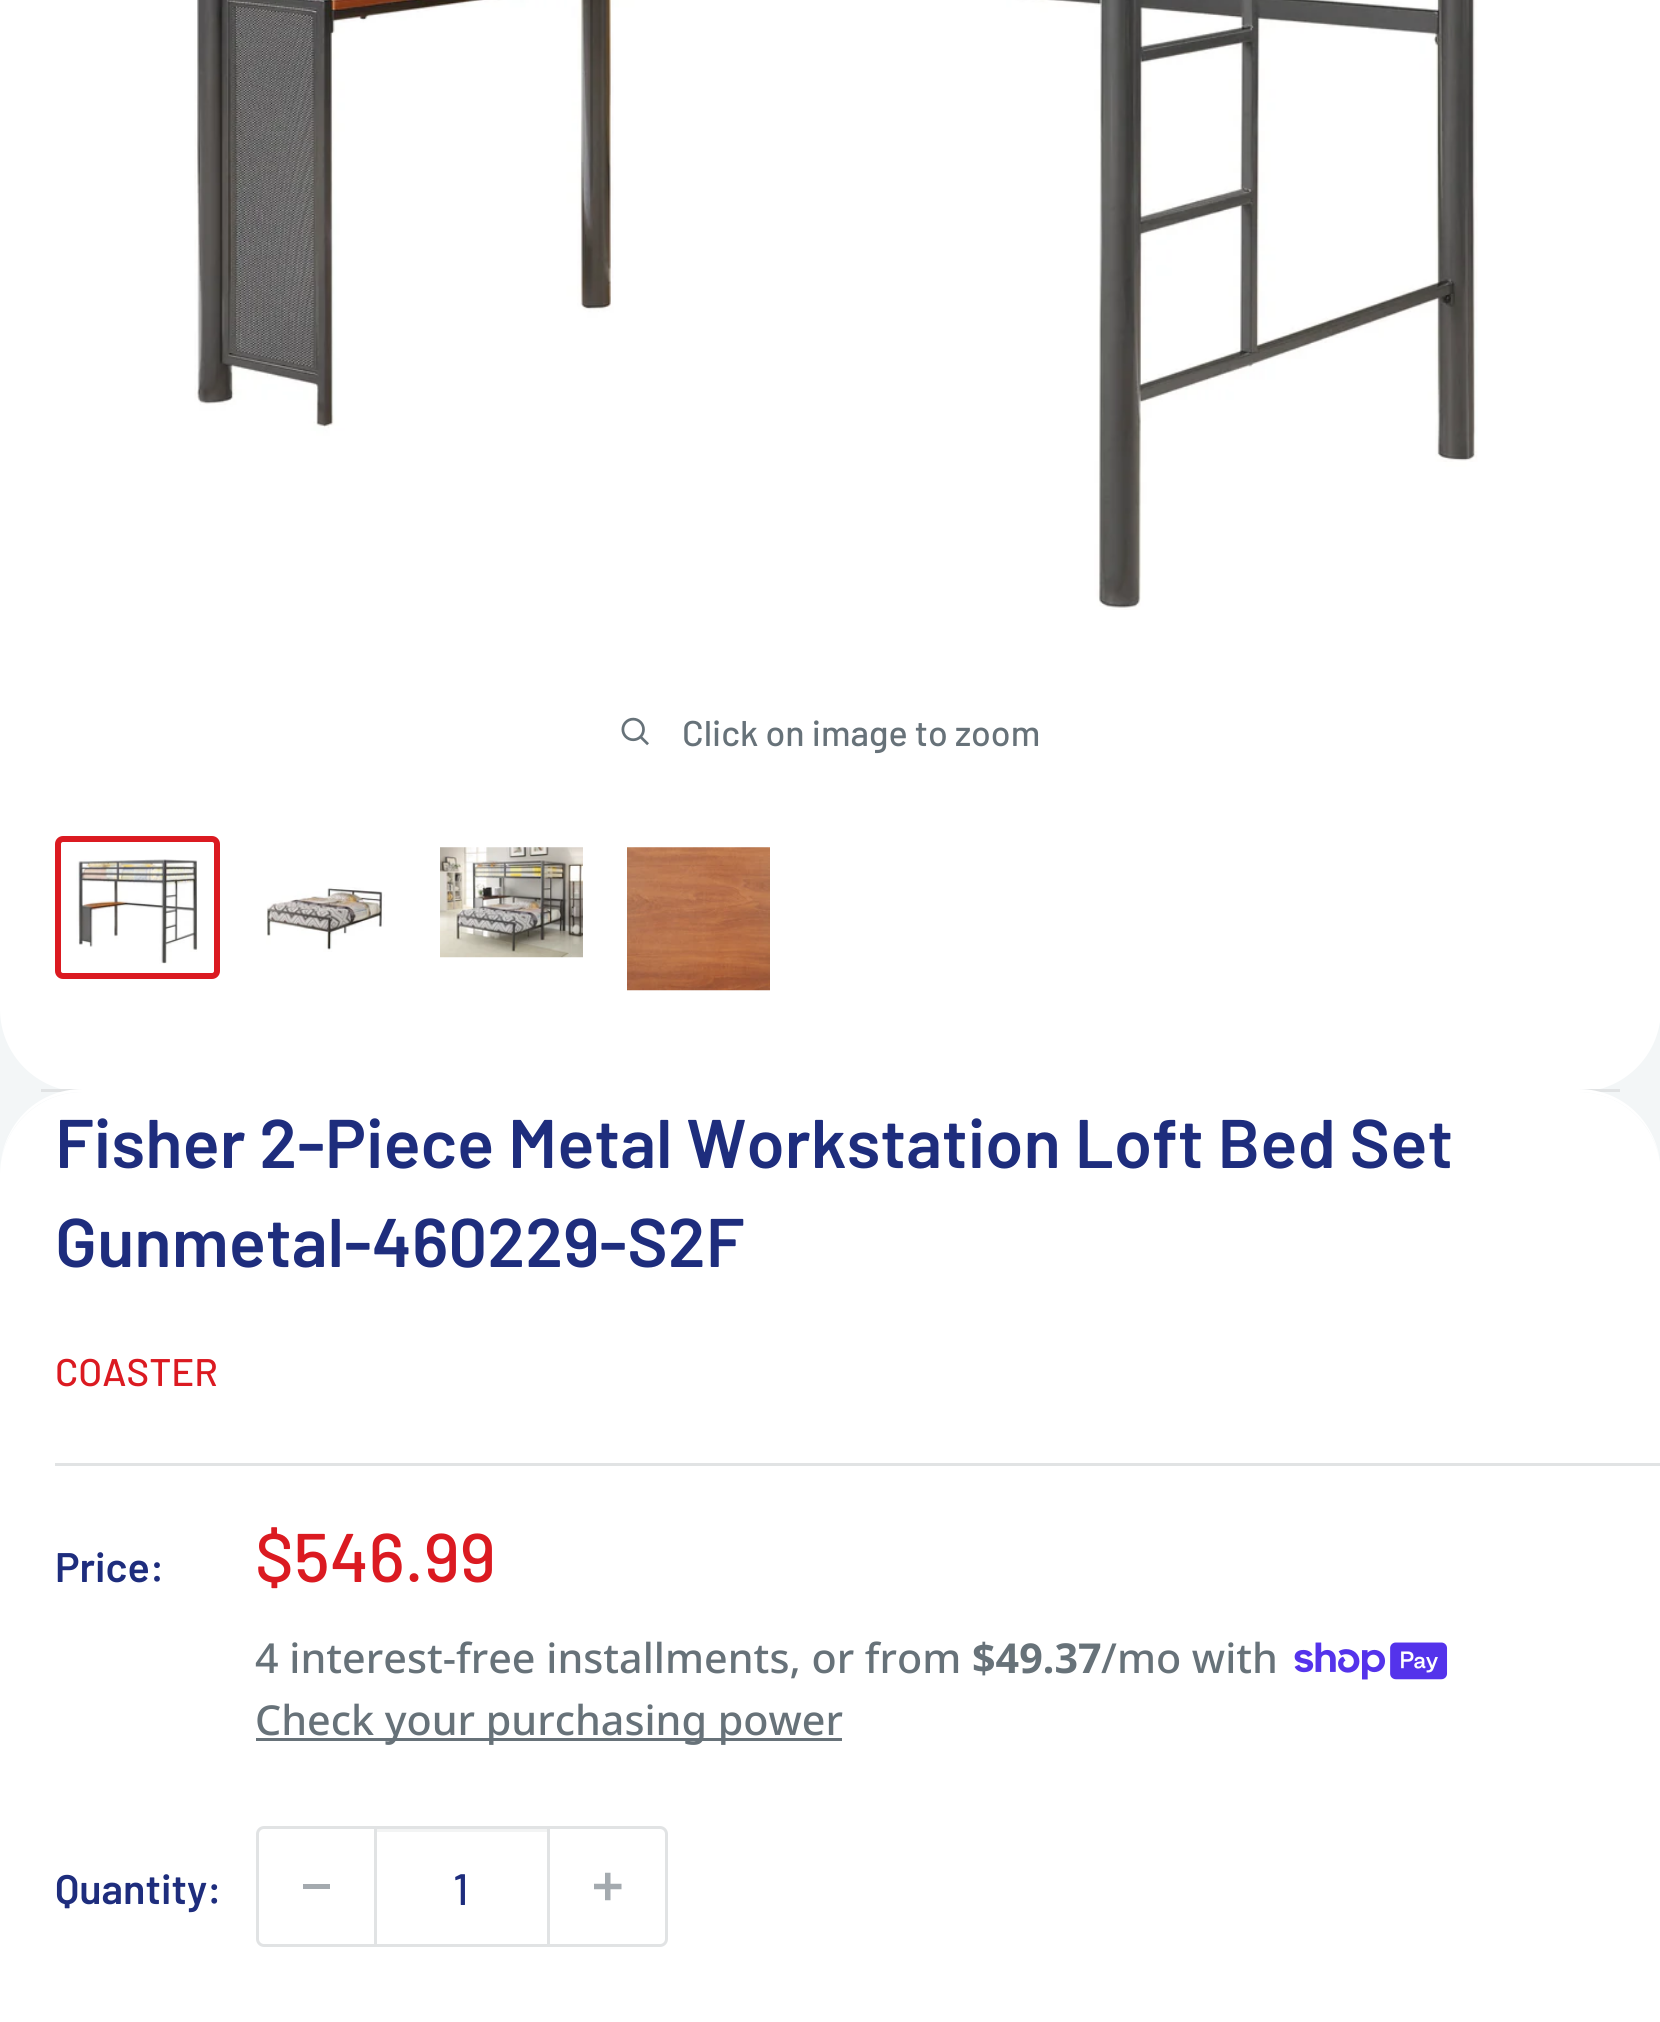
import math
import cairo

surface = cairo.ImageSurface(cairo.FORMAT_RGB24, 1660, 2022)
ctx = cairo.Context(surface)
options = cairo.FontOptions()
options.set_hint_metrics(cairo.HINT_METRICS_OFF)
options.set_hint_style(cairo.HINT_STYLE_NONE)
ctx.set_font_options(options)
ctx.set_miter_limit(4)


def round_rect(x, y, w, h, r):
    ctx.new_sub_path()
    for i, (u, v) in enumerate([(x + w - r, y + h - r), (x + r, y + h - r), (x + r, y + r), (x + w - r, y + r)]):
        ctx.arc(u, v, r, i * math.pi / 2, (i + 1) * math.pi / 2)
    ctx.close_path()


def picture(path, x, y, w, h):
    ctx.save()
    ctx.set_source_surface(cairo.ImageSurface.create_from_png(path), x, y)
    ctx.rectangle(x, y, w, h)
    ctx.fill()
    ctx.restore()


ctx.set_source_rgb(0.953, 0.961, 0.965)
ctx.paint()
ctx.set_source_rgb(1, 1, 1)
round_rect(0, -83, 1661, 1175, 83)
ctx.fill()
ctx.set_source_rgb(0.882, 0.89, 0.894)
ctx.rectangle(41, 1089, 1579, 3)
ctx.fill()
picture("img1.png", 194, 0, 1284, 610)
picture("img2.png", 621, 717, 28, 29)
ctx.select_font_face("Barlow Medium")
ctx.set_font_size(35.75)
ctx.set_source_rgb(0.404, 0.447, 0.475)
ctx.move_to(682, 746)
ctx.show_text("Click on image to zoom")
round_rect(58, 839, 159, 137, 5)
ctx.set_source_rgb(0.859, 0.102, 0.129)
ctx.set_line_width(6)
ctx.stroke()
picture("img3.png", 76, 859, 122, 105)
picture("img4.png", 266, 887, 119, 65)
picture("img5.png", 440, 847, 143, 111)
picture("img6.png", 627, 847, 143, 144)
ctx.set_source_rgb(1, 1, 1)
ctx.new_path()
ctx.move_to(83, 1089)
ctx.curve_to(35, 1089, 0, 1127, 0, 1174)
ctx.curve_to(0, 1129, 37, 1092, 82, 1092)
ctx.line_to(1578, 1092)
ctx.curve_to(1624, 1092, 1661, 1129, 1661, 1174)
ctx.curve_to(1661, 1127, 1626, 1089, 1578, 1089)
ctx.close_path()
ctx.fill()
round_rect(0, 1092, 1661, 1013, 83)
ctx.fill()
ctx.select_font_face("Barlow SemiBold")
ctx.set_font_size(68.75)
ctx.set_source_rgb(0.118, 0.176, 0.49)
ctx.move_to(55, 1168)
ctx.show_text("Fisher 2-Piece Metal Workstation Loft Bed Set")
ctx.move_to(55, 1267)
ctx.show_text("Gunmetal-460229-S2F")
ctx.select_font_face("Barlow Medium")
ctx.set_font_size(38.5)
ctx.set_source_rgb(0.859, 0.102, 0.129)
ctx.move_to(55, 1386)
ctx.show_text("COASTER")
ctx.set_source_rgb(0.882, 0.89, 0.894)
ctx.rectangle(55, 1463, 1605, 3)
ctx.fill()
ctx.select_font_face("Barlow SemiBold")
ctx.set_font_size(41.25)
ctx.set_source_rgb(0.118, 0.176, 0.49)
ctx.move_to(55, 1582)
ctx.show_text("Price:")
ctx.select_font_face("Barlow Medium")
ctx.set_font_size(68.75)
ctx.set_source_rgb(0.859, 0.102, 0.129)
ctx.move_to(255, 1582)
ctx.show_text("$546.99")
ctx.select_font_face("Noto Sans Medium")
ctx.set_font_size(41.25)
ctx.set_source_rgb(0.404, 0.447, 0.475)
ctx.move_to(255, 1673)
ctx.show_text("4 interest-free installments, or from")
ctx.select_font_face("Noto Sans", cairo.FONT_SLANT_NORMAL, cairo.FONT_WEIGHT_BOLD)
ctx.move_to(972, 1673)
ctx.show_text("$49.37")
ctx.select_font_face("Noto Sans Medium")
ctx.move_to(1101, 1673)
ctx.show_text("/mo with")
picture("img7.png", 1294, 1642, 154, 38)
ctx.rectangle(256, 1738, 586, 3)
ctx.fill()
ctx.move_to(255, 1735)
ctx.show_text("Check your purchasing power")
ctx.select_font_face("Barlow SemiBold")
ctx.set_source_rgb(0.118, 0.176, 0.49)
ctx.move_to(55, 1904)
ctx.show_text("Quantity:")
round_rect(257.5, 1827.5, 409, 118, 6.5)
ctx.set_source_rgb(0.882, 0.89, 0.894)
ctx.set_line_width(3)
ctx.stroke()
ctx.set_source_rgb(0.643, 0.667, 0.686)
ctx.rectangle(303, 1884, 27, 5)
ctx.fill()
ctx.set_source_rgb(0.953, 0.957, 0.957)
ctx.rectangle(377, 1829, 170, 3)
ctx.fill()
ctx.set_source_rgb(0.882, 0.89, 0.894)
ctx.rectangle(547, 1829, 3, 115)
ctx.fill()
ctx.rectangle(374, 1829, 3, 115)
ctx.fill()
ctx.select_font_face("Barlow Medium")
ctx.set_font_size(44)
ctx.set_source_rgb(0.118, 0.176, 0.49)
ctx.move_to(453, 1905)
ctx.show_text("1")
picture("img8.png", 594, 1872, 28, 29)
surface.write_to_png("page.png")
